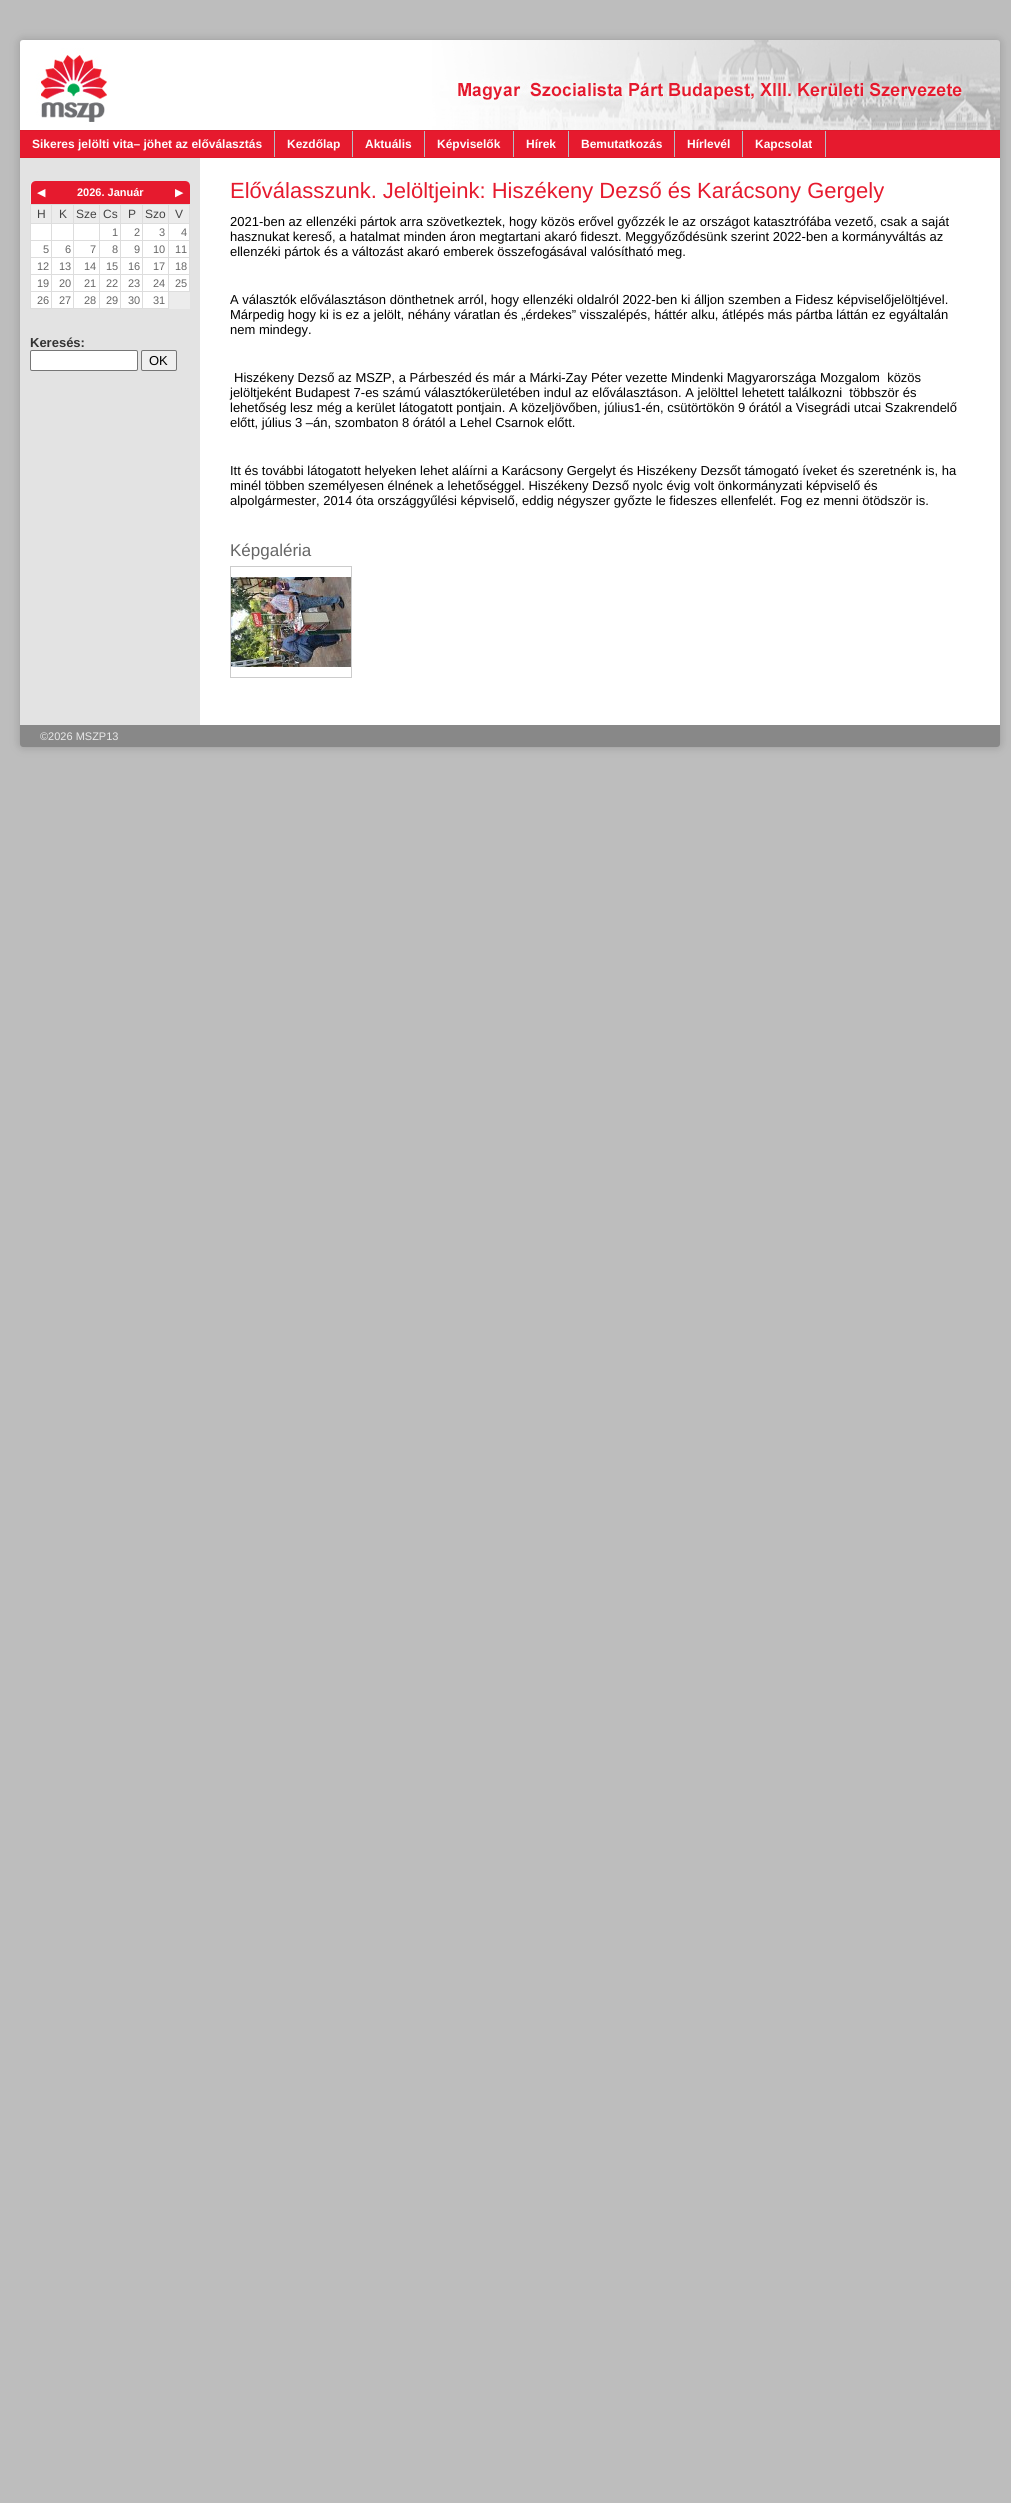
import math
import cairo

surface = cairo.ImageSurface(cairo.FORMAT_RGB24, 1011, 2503)
ctx = cairo.Context(surface)
options = cairo.FontOptions()
options.set_hint_metrics(cairo.HINT_METRICS_OFF)
options.set_hint_style(cairo.HINT_STYLE_NONE)
ctx.set_font_options(options)
ctx.set_miter_limit(4)


def round_rect(x, y, w, h, r):
    ctx.new_sub_path()
    for i, (u, v) in enumerate([(x + w - r, y + h - r), (x + r, y + h - r), (x + r, y + r), (x + w - r, y + r)]):
        ctx.arc(u, v, r, i * math.pi / 2, (i + 1) * math.pi / 2)
    ctx.close_path()


def shadow(x, y, w, h, r, blur, alpha):
    ctx.push_group_with_content(cairo.CONTENT_ALPHA)
    ctx.set_operator(cairo.OPERATOR_SOURCE)
    for i in range(15, -16, -2):
        e = blur * i / 6
        if min(w, h) + 2 * e > 0:
            ctx.set_source_rgba(0, 0, 0, alpha * math.erfc((i - 1) / 8.5) / 2)
            round_rect(x - e, y - e, w + 2 * e, h + 2 * e, max(0, min(r + e + blur * .6, min(w, h) / 2 + e)))
            ctx.fill()
    ctx.mask(ctx.pop_group())


def picture(path, x, y, w, h):
    ctx.save()
    ctx.set_source_surface(cairo.ImageSurface.create_from_png(path), x, y)
    ctx.rectangle(x, y, w, h)
    ctx.fill()
    ctx.restore()


ctx.set_source_rgb(0.741, 0.741, 0.741)
ctx.paint()
ctx.set_source_rgb(0, 0, 0)
shadow(20, 40, 980, 707, 3, 5, 0.2)
ctx.set_source_rgb(0.867, 0.102, 0.165)
ctx.rectangle(20, 130, 980, 1)
ctx.fill()
picture("img1.png", 20, 40, 980, 90)
ctx.set_source_rgb(0.902, 0.102, 0.18)
ctx.rectangle(20, 131, 980, 26)
ctx.fill()
ctx.set_source_rgb(0.867, 0.102, 0.165)
ctx.rectangle(20, 157, 980, 1)
ctx.fill()
ctx.set_source_rgb(0.71, 0.741, 0.765)
ctx.rectangle(274, 131, 1, 26)
ctx.fill()
ctx.select_font_face("Liberation Sans", cairo.FONT_SLANT_NORMAL, cairo.FONT_WEIGHT_BOLD)
ctx.set_font_size(12)
ctx.set_source_rgb(1, 1, 1)
ctx.move_to(32, 148)
ctx.show_text("Sikeres jelölti vita– jöhet az előválasztás")
ctx.set_source_rgb(0.71, 0.741, 0.765)
ctx.rectangle(352, 131, 1, 26)
ctx.fill()
ctx.set_source_rgb(1, 1, 1)
ctx.move_to(287, 148)
ctx.show_text("Kezdőlap")
ctx.set_source_rgb(0.71, 0.741, 0.765)
ctx.rectangle(424, 131, 1, 26)
ctx.fill()
ctx.set_source_rgb(1, 1, 1)
ctx.move_to(365, 148)
ctx.show_text("Aktuális")
ctx.set_source_rgb(0.71, 0.741, 0.765)
ctx.rectangle(513, 131, 1, 26)
ctx.fill()
ctx.set_source_rgb(1, 1, 1)
ctx.move_to(437, 148)
ctx.show_text("Képviselők")
ctx.set_source_rgb(0.71, 0.741, 0.765)
ctx.rectangle(568, 131, 1, 26)
ctx.fill()
ctx.set_source_rgb(1, 1, 1)
ctx.move_to(526, 148)
ctx.show_text("Hírek")
ctx.set_source_rgb(0.71, 0.741, 0.765)
ctx.rectangle(674, 131, 1, 26)
ctx.fill()
ctx.set_source_rgb(1, 1, 1)
ctx.move_to(581, 148)
ctx.show_text("Bemutatkozás")
ctx.set_source_rgb(0.71, 0.741, 0.765)
ctx.rectangle(742, 131, 1, 26)
ctx.fill()
ctx.set_source_rgb(1, 1, 1)
ctx.move_to(687, 148)
ctx.show_text("Hírlevél")
ctx.set_source_rgb(0.71, 0.741, 0.765)
ctx.rectangle(825, 131, 1, 26)
ctx.fill()
ctx.set_source_rgb(1, 1, 1)
ctx.move_to(755, 148)
ctx.show_text("Kapcsolat")
ctx.rectangle(200, 158, 800, 567)
ctx.fill()
ctx.set_source_rgb(0.89, 0.89, 0.89)
ctx.rectangle(20, 158, 180, 567)
ctx.fill()
ctx.set_source_rgb(0.925, 0.925, 0.925)
ctx.new_path()
ctx.move_to(35, 181)
ctx.line_to(185, 181)
ctx.curve_to(188, 181, 190, 183, 190, 186)
ctx.line_to(190, 309)
ctx.line_to(30, 309)
ctx.line_to(30, 186)
ctx.curve_to(30, 183, 32, 181, 35, 181)
ctx.close_path()
ctx.fill()
ctx.set_source_rgb(0.902, 0.102, 0.18)
ctx.new_path()
ctx.move_to(36, 181)
ctx.line_to(52, 181)
ctx.line_to(52, 205)
ctx.line_to(31, 205)
ctx.line_to(31, 186)
ctx.curve_to(31, 183, 33, 181, 36, 181)
ctx.close_path()
ctx.fill()
ctx.select_font_face("DejaVu Sans")
ctx.set_font_size(11)
ctx.set_source_rgb(1, 1, 1)
ctx.move_to(37, 196)
ctx.show_text("◀")
ctx.set_source_rgb(0.902, 0.102, 0.18)
ctx.rectangle(52, 181, 116, 23)
ctx.fill()
ctx.select_font_face("Liberation Sans", cairo.FONT_SLANT_NORMAL, cairo.FONT_WEIGHT_BOLD)
ctx.set_source_rgb(1, 1, 1)
ctx.move_to(77, 196)
ctx.show_text("2026. Január")
ctx.set_source_rgb(0.902, 0.102, 0.18)
ctx.new_path()
ctx.move_to(168, 181)
ctx.line_to(185, 181)
ctx.curve_to(188, 181, 190, 183, 190, 186)
ctx.line_to(190, 205)
ctx.line_to(168, 205)
ctx.close_path()
ctx.fill()
ctx.select_font_face("DejaVu Sans")
ctx.set_source_rgb(1, 1, 1)
ctx.move_to(175, 196)
ctx.show_text("▶")
ctx.set_source_rgb(0.867, 0.867, 0.867)
ctx.rectangle(168, 204, 22, 1)
ctx.fill()
ctx.rectangle(168, 223, 22, 1)
ctx.fill()
ctx.rectangle(168, 240, 22, 1)
ctx.fill()
ctx.rectangle(168, 257, 22, 1)
ctx.fill()
ctx.rectangle(168, 274, 22, 1)
ctx.fill()
ctx.rectangle(189, 274, 1, 18)
ctx.fill()
ctx.rectangle(142, 291, 27, 1)
ctx.fill()
ctx.rectangle(168, 291, 1, 18)
ctx.fill()
ctx.rectangle(168, 291, 22, 1)
ctx.fill()
ctx.rectangle(168, 274, 1, 18)
ctx.fill()
ctx.rectangle(142, 274, 27, 1)
ctx.fill()
ctx.rectangle(168, 257, 1, 18)
ctx.fill()
ctx.rectangle(142, 257, 27, 1)
ctx.fill()
ctx.rectangle(168, 240, 1, 18)
ctx.fill()
ctx.rectangle(142, 240, 27, 1)
ctx.fill()
ctx.rectangle(168, 223, 1, 18)
ctx.fill()
ctx.rectangle(142, 223, 27, 1)
ctx.fill()
ctx.rectangle(168, 204, 1, 20)
ctx.fill()
ctx.rectangle(142, 204, 27, 1)
ctx.fill()
ctx.rectangle(142, 308, 27, 1)
ctx.fill()
ctx.rectangle(142, 291, 1, 18)
ctx.fill()
ctx.rectangle(120, 291, 23, 1)
ctx.fill()
ctx.rectangle(142, 274, 1, 18)
ctx.fill()
ctx.rectangle(120, 274, 23, 1)
ctx.fill()
ctx.rectangle(142, 257, 1, 18)
ctx.fill()
ctx.rectangle(120, 257, 23, 1)
ctx.fill()
ctx.rectangle(142, 240, 1, 18)
ctx.fill()
ctx.rectangle(120, 240, 23, 1)
ctx.fill()
ctx.rectangle(142, 223, 1, 18)
ctx.fill()
ctx.rectangle(120, 223, 23, 1)
ctx.fill()
ctx.rectangle(142, 204, 1, 20)
ctx.fill()
ctx.rectangle(120, 204, 23, 1)
ctx.fill()
ctx.rectangle(120, 308, 23, 1)
ctx.fill()
ctx.rectangle(120, 291, 1, 18)
ctx.fill()
ctx.rectangle(99, 291, 22, 1)
ctx.fill()
ctx.rectangle(120, 274, 1, 18)
ctx.fill()
ctx.rectangle(99, 274, 22, 1)
ctx.fill()
ctx.rectangle(120, 257, 1, 18)
ctx.fill()
ctx.rectangle(99, 257, 22, 1)
ctx.fill()
ctx.rectangle(120, 240, 1, 18)
ctx.fill()
ctx.rectangle(99, 240, 22, 1)
ctx.fill()
ctx.rectangle(120, 223, 1, 18)
ctx.fill()
ctx.rectangle(99, 223, 22, 1)
ctx.fill()
ctx.rectangle(120, 204, 1, 20)
ctx.fill()
ctx.rectangle(99, 204, 22, 1)
ctx.fill()
ctx.rectangle(99, 308, 22, 1)
ctx.fill()
ctx.rectangle(99, 291, 1, 18)
ctx.fill()
ctx.rectangle(73, 291, 27, 1)
ctx.fill()
ctx.rectangle(99, 274, 1, 18)
ctx.fill()
ctx.rectangle(73, 274, 27, 1)
ctx.fill()
ctx.rectangle(99, 257, 1, 18)
ctx.fill()
ctx.rectangle(73, 257, 27, 1)
ctx.fill()
ctx.rectangle(99, 240, 1, 18)
ctx.fill()
ctx.rectangle(73, 240, 27, 1)
ctx.fill()
ctx.rectangle(99, 223, 1, 18)
ctx.fill()
ctx.rectangle(73, 223, 27, 1)
ctx.fill()
ctx.rectangle(99, 204, 1, 20)
ctx.fill()
ctx.rectangle(73, 204, 27, 1)
ctx.fill()
ctx.rectangle(73, 308, 27, 1)
ctx.fill()
ctx.rectangle(73, 291, 1, 18)
ctx.fill()
ctx.rectangle(51, 291, 23, 1)
ctx.fill()
ctx.rectangle(73, 274, 1, 18)
ctx.fill()
ctx.rectangle(51, 274, 23, 1)
ctx.fill()
ctx.rectangle(73, 257, 1, 18)
ctx.fill()
ctx.rectangle(51, 257, 23, 1)
ctx.fill()
ctx.rectangle(73, 240, 1, 18)
ctx.fill()
ctx.rectangle(51, 240, 23, 1)
ctx.fill()
ctx.rectangle(73, 223, 1, 18)
ctx.fill()
ctx.rectangle(51, 223, 23, 1)
ctx.fill()
ctx.rectangle(73, 204, 1, 20)
ctx.fill()
ctx.rectangle(51, 204, 23, 1)
ctx.fill()
ctx.rectangle(51, 308, 23, 1)
ctx.fill()
ctx.rectangle(51, 291, 1, 18)
ctx.fill()
ctx.rectangle(30, 291, 22, 1)
ctx.fill()
ctx.rectangle(51, 274, 1, 18)
ctx.fill()
ctx.rectangle(30, 274, 22, 1)
ctx.fill()
ctx.rectangle(51, 257, 1, 18)
ctx.fill()
ctx.rectangle(30, 257, 22, 1)
ctx.fill()
ctx.rectangle(51, 240, 1, 18)
ctx.fill()
ctx.rectangle(30, 240, 22, 1)
ctx.fill()
ctx.rectangle(51, 223, 1, 18)
ctx.fill()
ctx.rectangle(30, 223, 22, 1)
ctx.fill()
ctx.rectangle(51, 204, 1, 20)
ctx.fill()
ctx.rectangle(30, 204, 22, 1)
ctx.fill()
ctx.rectangle(30, 308, 22, 1)
ctx.fill()
ctx.rectangle(30, 291, 1, 18)
ctx.fill()
ctx.rectangle(30, 274, 1, 18)
ctx.fill()
ctx.rectangle(30, 257, 1, 18)
ctx.fill()
ctx.rectangle(30, 240, 1, 18)
ctx.fill()
ctx.rectangle(30, 223, 1, 18)
ctx.fill()
ctx.rectangle(30, 204, 1, 20)
ctx.fill()
ctx.select_font_face("Liberation Sans")
ctx.set_font_size(12)
ctx.set_source_rgb(0.267, 0.267, 0.267)
ctx.move_to(37, 218)
ctx.show_text("H")
ctx.move_to(59, 218)
ctx.show_text("K")
ctx.move_to(76, 218)
ctx.show_text("Sze")
ctx.move_to(103, 218)
ctx.show_text("Cs")
ctx.move_to(128, 218)
ctx.show_text("P")
ctx.move_to(145, 218)
ctx.show_text("Szo")
ctx.set_source_rgb(0.867, 0.867, 0.867)
ctx.rectangle(189, 257, 1, 18)
ctx.fill()
ctx.rectangle(189, 240, 1, 18)
ctx.fill()
ctx.rectangle(189, 223, 1, 18)
ctx.fill()
ctx.rectangle(189, 204, 1, 20)
ctx.fill()
ctx.set_source_rgb(0.267, 0.267, 0.267)
ctx.move_to(175, 218)
ctx.show_text("V")
ctx.set_source_rgb(1, 1, 1)
ctx.rectangle(31, 224, 20, 16)
ctx.fill()
ctx.rectangle(52, 224, 21, 16)
ctx.fill()
ctx.rectangle(74, 224, 25, 16)
ctx.fill()
ctx.rectangle(100, 224, 20, 16)
ctx.fill()
ctx.set_font_size(11)
ctx.set_source_rgb(0.4, 0.4, 0.4)
ctx.move_to(112, 236)
ctx.show_text("1")
ctx.set_source_rgb(1, 1, 1)
ctx.rectangle(121, 224, 21, 16)
ctx.fill()
ctx.set_source_rgb(0.4, 0.4, 0.4)
ctx.move_to(134, 236)
ctx.show_text("2")
ctx.set_source_rgb(1, 1, 1)
ctx.rectangle(143, 224, 25, 16)
ctx.fill()
ctx.set_source_rgb(0.4, 0.4, 0.4)
ctx.move_to(159, 236)
ctx.show_text("3")
ctx.set_source_rgb(1, 1, 1)
ctx.rectangle(169, 224, 20, 16)
ctx.fill()
ctx.set_source_rgb(0.4, 0.4, 0.4)
ctx.move_to(181, 236)
ctx.show_text("4")
ctx.set_source_rgb(1, 1, 1)
ctx.rectangle(31, 241, 20, 16)
ctx.fill()
ctx.set_source_rgb(0.4, 0.4, 0.4)
ctx.move_to(43, 253)
ctx.show_text("5")
ctx.set_source_rgb(1, 1, 1)
ctx.rectangle(52, 241, 21, 16)
ctx.fill()
ctx.set_source_rgb(0.4, 0.4, 0.4)
ctx.move_to(65, 253)
ctx.show_text("6")
ctx.set_source_rgb(1, 1, 1)
ctx.rectangle(74, 241, 25, 16)
ctx.fill()
ctx.set_source_rgb(0.4, 0.4, 0.4)
ctx.move_to(90, 253)
ctx.show_text("7")
ctx.set_source_rgb(1, 1, 1)
ctx.rectangle(100, 241, 20, 16)
ctx.fill()
ctx.set_source_rgb(0.4, 0.4, 0.4)
ctx.move_to(112, 253)
ctx.show_text("8")
ctx.set_source_rgb(1, 1, 1)
ctx.rectangle(121, 241, 21, 16)
ctx.fill()
ctx.set_source_rgb(0.4, 0.4, 0.4)
ctx.move_to(134, 253)
ctx.show_text("9")
ctx.set_source_rgb(1, 1, 1)
ctx.rectangle(143, 241, 25, 16)
ctx.fill()
ctx.set_source_rgb(0.4, 0.4, 0.4)
ctx.move_to(153, 253)
ctx.show_text("10")
ctx.set_source_rgb(1, 1, 1)
ctx.rectangle(169, 241, 20, 16)
ctx.fill()
ctx.set_source_rgb(0.4, 0.4, 0.4)
ctx.move_to(175, 253)
ctx.show_text("11")
ctx.set_source_rgb(1, 1, 1)
ctx.rectangle(31, 258, 20, 16)
ctx.fill()
ctx.set_source_rgb(0.4, 0.4, 0.4)
ctx.move_to(37, 270)
ctx.show_text("12")
ctx.set_source_rgb(1, 1, 1)
ctx.rectangle(52, 258, 21, 16)
ctx.fill()
ctx.set_source_rgb(0.4, 0.4, 0.4)
ctx.move_to(59, 270)
ctx.show_text("13")
ctx.set_source_rgb(1, 1, 1)
ctx.rectangle(74, 258, 25, 16)
ctx.fill()
ctx.set_source_rgb(0.4, 0.4, 0.4)
ctx.move_to(84, 270)
ctx.show_text("14")
ctx.set_source_rgb(1, 1, 1)
ctx.rectangle(100, 258, 20, 16)
ctx.fill()
ctx.set_source_rgb(0.4, 0.4, 0.4)
ctx.move_to(106, 270)
ctx.show_text("15")
ctx.set_source_rgb(1, 1, 1)
ctx.rectangle(121, 258, 21, 16)
ctx.fill()
ctx.set_source_rgb(0.4, 0.4, 0.4)
ctx.move_to(128, 270)
ctx.show_text("16")
ctx.set_source_rgb(1, 1, 1)
ctx.rectangle(143, 258, 25, 16)
ctx.fill()
ctx.set_source_rgb(0.4, 0.4, 0.4)
ctx.move_to(153, 270)
ctx.show_text("17")
ctx.set_source_rgb(1, 1, 1)
ctx.rectangle(169, 258, 20, 16)
ctx.fill()
ctx.set_source_rgb(0.4, 0.4, 0.4)
ctx.move_to(175, 270)
ctx.show_text("18")
ctx.set_source_rgb(1, 1, 1)
ctx.rectangle(31, 275, 20, 16)
ctx.fill()
ctx.set_source_rgb(0.4, 0.4, 0.4)
ctx.move_to(37, 287)
ctx.show_text("19")
ctx.set_source_rgb(1, 1, 1)
ctx.rectangle(52, 275, 21, 16)
ctx.fill()
ctx.set_source_rgb(0.4, 0.4, 0.4)
ctx.move_to(59, 287)
ctx.show_text("20")
ctx.set_source_rgb(1, 1, 1)
ctx.rectangle(74, 275, 25, 16)
ctx.fill()
ctx.set_source_rgb(0.4, 0.4, 0.4)
ctx.move_to(84, 287)
ctx.show_text("21")
ctx.set_source_rgb(1, 1, 1)
ctx.rectangle(100, 275, 20, 16)
ctx.fill()
ctx.set_source_rgb(0.4, 0.4, 0.4)
ctx.move_to(106, 287)
ctx.show_text("22")
ctx.set_source_rgb(1, 1, 1)
ctx.rectangle(121, 275, 21, 16)
ctx.fill()
ctx.set_source_rgb(0.4, 0.4, 0.4)
ctx.move_to(128, 287)
ctx.show_text("23")
ctx.set_source_rgb(1, 1, 1)
ctx.rectangle(143, 275, 25, 16)
ctx.fill()
ctx.set_source_rgb(0.4, 0.4, 0.4)
ctx.move_to(153, 287)
ctx.show_text("24")
ctx.set_source_rgb(1, 1, 1)
ctx.rectangle(169, 275, 20, 16)
ctx.fill()
ctx.set_source_rgb(0.4, 0.4, 0.4)
ctx.move_to(175, 287)
ctx.show_text("25")
ctx.set_source_rgb(1, 1, 1)
ctx.rectangle(31, 292, 20, 16)
ctx.fill()
ctx.set_source_rgb(0.4, 0.4, 0.4)
ctx.move_to(37, 304)
ctx.show_text("26")
ctx.set_source_rgb(1, 1, 1)
ctx.rectangle(52, 292, 21, 16)
ctx.fill()
ctx.set_source_rgb(0.4, 0.4, 0.4)
ctx.move_to(59, 304)
ctx.show_text("27")
ctx.set_source_rgb(1, 1, 1)
ctx.rectangle(74, 292, 25, 16)
ctx.fill()
ctx.set_source_rgb(0.4, 0.4, 0.4)
ctx.move_to(84, 304)
ctx.show_text("28")
ctx.set_source_rgb(1, 1, 1)
ctx.rectangle(100, 292, 20, 16)
ctx.fill()
ctx.set_source_rgb(0.4, 0.4, 0.4)
ctx.move_to(106, 304)
ctx.show_text("29")
ctx.set_source_rgb(1, 1, 1)
ctx.rectangle(121, 292, 21, 16)
ctx.fill()
ctx.set_source_rgb(0.4, 0.4, 0.4)
ctx.move_to(128, 304)
ctx.show_text("30")
ctx.set_source_rgb(1, 1, 1)
ctx.rectangle(143, 292, 25, 16)
ctx.fill()
ctx.set_source_rgb(0.4, 0.4, 0.4)
ctx.move_to(153, 304)
ctx.show_text("31")
ctx.select_font_face("Liberation Sans", cairo.FONT_SLANT_NORMAL, cairo.FONT_WEIGHT_BOLD)
ctx.set_font_size(13)
ctx.set_source_rgb(0.2, 0.2, 0.2)
ctx.move_to(30, 347)
ctx.show_text("Keresés:")
ctx.set_source_rgb(1, 1, 1)
round_rect(30.5, 350.5, 107, 20, 1.5)
ctx.fill_preserve()
ctx.set_source_rgb(0.463, 0.463, 0.463)
ctx.set_line_width(1)
ctx.stroke()
ctx.set_source_rgb(0.937, 0.937, 0.937)
round_rect(141.5, 350.5, 35, 20, 1.5)
ctx.fill_preserve()
ctx.set_source_rgb(0.463, 0.463, 0.463)
ctx.stroke()
ctx.select_font_face("Liberation Sans")
ctx.set_source_rgb(0, 0, 0)
ctx.move_to(149, 365)
ctx.show_text("OK")
ctx.set_font_size(22)
ctx.set_source_rgb(0.902, 0.102, 0.18)
ctx.move_to(230, 198)
ctx.show_text("Előválasszunk. Jelöltjeink: Hiszékeny Dezső és Karácsony Gergely")
ctx.set_font_size(13)
ctx.set_source_rgb(0, 0, 0)
ctx.move_to(230, 226)
ctx.show_text("2021-ben az ellenzéki pártok arra szövetkeztek, hogy közös erővel győzzék le az országot katasztrófába vezető, csak a saját")
ctx.move_to(230, 241)
ctx.show_text("hasznukat kereső, a hatalmat minden áron megtartani akaró fideszt. Meggyőződésünk szerint 2022-ben a kormányváltás az")
ctx.move_to(230, 256)
ctx.show_text("ellenzéki pártok és a változást akaró emberek összefogásával valósítható meg.")
ctx.move_to(230, 304)
ctx.show_text("A választók előválasztáson dönthetnek arról, hogy ellenzéki oldalról 2022-ben ki álljon szemben a Fidesz képviselőjelöltjével.")
ctx.move_to(230, 319)
ctx.show_text("Márpedig hogy ki is ez a jelölt, néhány váratlan és „érdekes” visszalépés, háttér alku, átlépés más pártba láttán ez egyáltalán")
ctx.move_to(230, 334)
ctx.show_text("nem mindegy.")
ctx.move_to(234, 382)
ctx.show_text("Hiszékeny Dezső az MSZP, a Párbeszéd és már a Márki-Zay Péter vezette Mindenki Magyarországa Mozgalom  közös")
ctx.move_to(230, 397)
ctx.show_text("jelöltjeként Budapest 7-es számú választókerületében indul az előválasztáson. A jelölttel lehetett találkozni  többször és")
ctx.move_to(230, 412)
ctx.show_text("lehetőség lesz még a kerület látogatott pontjain. A közeljövőben, július1-én, csütörtökön 9 órától a Visegrádi utcai Szakrendelő")
ctx.move_to(230, 427)
ctx.show_text("előtt, július 3 –án, szombaton 8 órától a Lehel Csarnok előtt.")
ctx.move_to(230, 475)
ctx.show_text("Itt és további látogatott helyeken lehet aláírni a Karácsony Gergelyt és Hiszékeny Dezsőt támogató íveket és szeretnénk is, ha")
ctx.move_to(230, 490)
ctx.show_text("minél többen személyesen élnének a lehetőséggel. Hiszékeny Dezső nyolc évig volt önkormányzati képviselő és")
ctx.move_to(230, 505)
ctx.show_text("alpolgármester, 2014 óta országgyűlési képviselő, eddig négyszer győzte le fideszes ellenfelét. Fog ez menni ötödször is.")
ctx.set_font_size(17)
ctx.set_source_rgb(0.4, 0.4, 0.4)
ctx.move_to(230, 556)
ctx.show_text("Képgaléria")
ctx.rectangle(230.5, 566.5, 121, 111)
ctx.set_source_rgb(0.8, 0.8, 0.8)
ctx.stroke()
picture("img2.png", 231, 577, 120, 90)
ctx.set_source_rgb(0.533, 0.533, 0.533)
ctx.new_path()
ctx.move_to(20, 725)
ctx.line_to(1000, 725)
ctx.line_to(1000, 744)
ctx.curve_to(1000, 745.5, 998.5, 747, 997, 747)
ctx.line_to(23, 747)
ctx.curve_to(21.5, 747, 20, 745.5, 20, 744)
ctx.close_path()
ctx.fill()
ctx.set_font_size(11)
ctx.set_source_rgb(0.914, 0.914, 0.914)
ctx.move_to(40, 740)
ctx.show_text("©2026 MSZP13")
surface.write_to_png("page.png")
